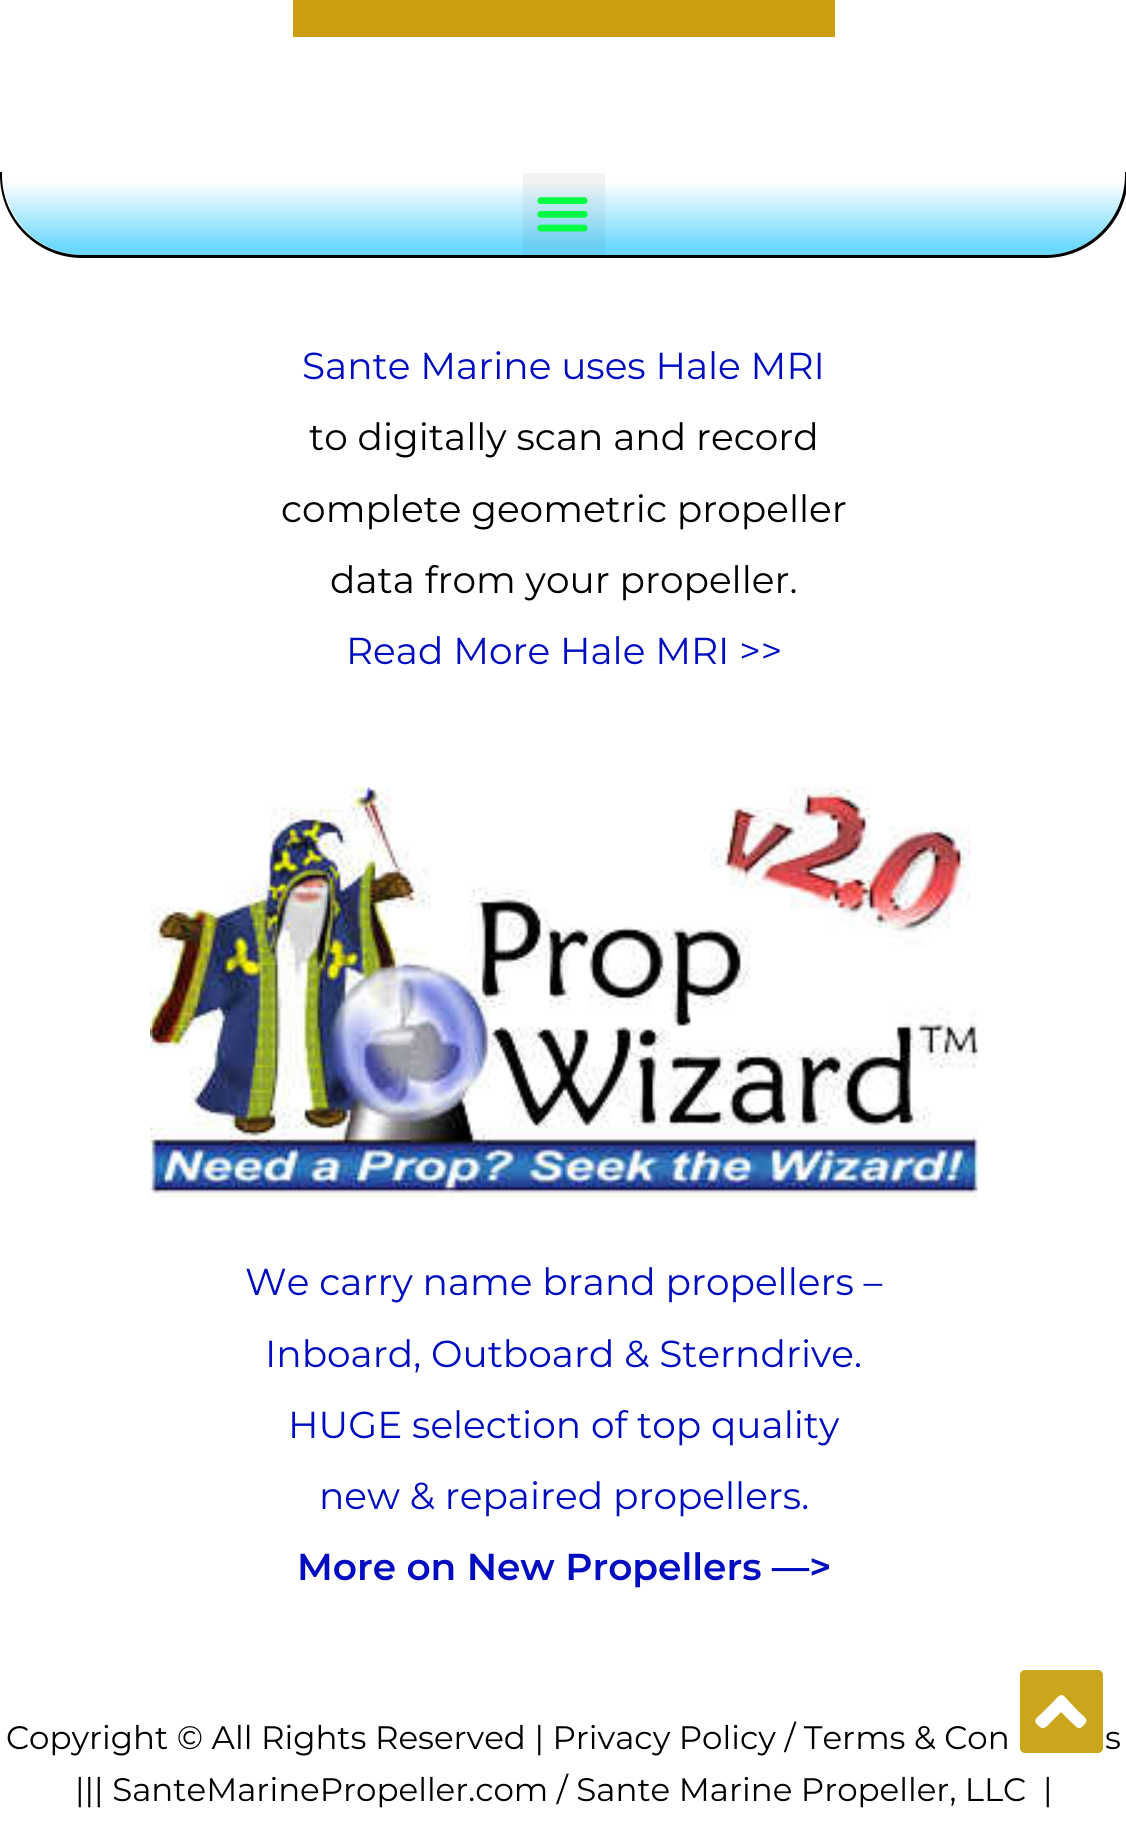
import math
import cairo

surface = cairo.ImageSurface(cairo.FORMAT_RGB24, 1126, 1835)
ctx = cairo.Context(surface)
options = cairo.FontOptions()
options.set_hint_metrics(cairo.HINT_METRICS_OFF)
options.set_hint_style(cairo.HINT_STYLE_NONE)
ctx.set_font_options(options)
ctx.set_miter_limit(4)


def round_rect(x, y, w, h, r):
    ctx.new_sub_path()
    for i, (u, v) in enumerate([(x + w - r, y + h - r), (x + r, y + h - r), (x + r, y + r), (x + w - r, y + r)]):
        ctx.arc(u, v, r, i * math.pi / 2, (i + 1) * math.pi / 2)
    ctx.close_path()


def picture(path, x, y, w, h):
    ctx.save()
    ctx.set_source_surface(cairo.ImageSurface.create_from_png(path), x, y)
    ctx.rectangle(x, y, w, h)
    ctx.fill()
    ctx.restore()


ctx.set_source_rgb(1, 1, 1)
ctx.paint()
ctx.set_source_rgb(0.8, 0.616, 0.063)
ctx.rectangle(293, 0, 542, 37)
ctx.fill()
gradient = cairo.LinearGradient(564, 172, 564, 255)
gradient.add_color_stop_rgba(0.11, 1, 1, 1, 1)
gradient.add_color_stop_rgba(0.9, 0.427, 0.847, 0.996, 1)
ctx.set_source(gradient)
ctx.new_path()
ctx.move_to(3, 173)
ctx.line_to(1125, 173)
ctx.line_to(1125, 175)
ctx.curve_to(1125, 219, 1089, 255, 1045, 255)
ctx.line_to(83, 255)
ctx.curve_to(39, 255, 3, 219, 3, 175)
ctx.close_path()
ctx.fill()
ctx.set_source_rgb(0, 0, 0)
ctx.set_fill_rule(cairo.FILL_RULE_EVEN_ODD)
ctx.new_path()
ctx.move_to(0, 172)
ctx.line_to(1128, 172)
ctx.line_to(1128, 175)
ctx.curve_to(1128, 221, 1091, 258, 1045, 258)
ctx.line_to(82, 258)
ctx.curve_to(37, 258, 0, 221, 0, 175)
ctx.close_path()
ctx.move_to(2, 172)
ctx.line_to(1125, 172)
ctx.line_to(1125, 175)
ctx.curve_to(1125, 219, 1089, 255, 1045, 255)
ctx.line_to(82, 255)
ctx.curve_to(38, 255, 2, 219, 2, 175)
ctx.close_path()
ctx.fill()
ctx.set_source_rgba(0, 0, 0, 0.05)
ctx.rectangle(523, 173, 82, 82)
ctx.fill()
picture("img1.png", 537, 197, 51, 35)
ctx.select_font_face("Montserrat")
ctx.set_font_size(37.5)
ctx.set_source_rgb(0, 0.047, 0.749)
ctx.move_to(302, 379)
ctx.show_text("Sante Marine uses Hale MRI")
ctx.set_source_rgb(0, 0, 0)
ctx.move_to(309, 450)
ctx.show_text("to digitally scan and record")
ctx.move_to(281, 522)
ctx.show_text("complete geometric propeller")
ctx.move_to(330, 593)
ctx.show_text("data from your propeller.")
ctx.set_source_rgb(0, 0.047, 0.749)
ctx.move_to(346, 664)
ctx.show_text("Read More Hale MRI >>")
picture("img2.png", 150, 787, 828, 411)
ctx.move_to(245, 1295)
ctx.show_text("We carry name brand propellers –")
ctx.move_to(265, 1367)
ctx.show_text("Inboard, Outboard & Sterndrive.")
ctx.move_to(288, 1438)
ctx.show_text("HUGE selection of top quality")
ctx.move_to(319, 1509)
ctx.show_text("new & repaired propellers.")
ctx.select_font_face("Montserrat SemiBold")
ctx.move_to(297, 1580)
ctx.show_text("More on New Propellers —>")
ctx.select_font_face("Montserrat")
ctx.set_font_size(32.5)
ctx.set_source_rgb(0, 0, 0)
ctx.move_to(6, 1749)
ctx.show_text("Copyright © All Rights Reserved | Privacy Policy / Terms & Con")
ctx.move_to(1105, 1749)
ctx.show_text("s")
ctx.move_to(75, 1801)
ctx.show_text("||| SanteMarinePropeller.com / Sante Marine Propeller, LLC")
ctx.move_to(1043, 1801)
ctx.show_text("|")
ctx.set_source_rgb(0.788, 0.651, 0.11)
round_rect(1020, 1670, 83, 83, 5)
ctx.fill()
ctx.set_source_rgb(1, 1, 1)
ctx.set_fill_rule(cairo.FILL_RULE_WINDING)
ctx.new_path()
ctx.move_to(1064, 1696)
ctx.line_to(1078, 1711)
ctx.curve_to(1085, 1718, 1090, 1719, 1083, 1726)
ctx.curve_to(1078, 1731, 1076, 1726, 1071, 1722)
ctx.line_to(1061, 1712)
ctx.line_to(1051, 1722)
ctx.curve_to(1049, 1724, 1044, 1731, 1040, 1727)
ctx.curve_to(1031, 1720, 1036, 1719, 1044, 1711)
ctx.line_to(1055, 1700)
ctx.curve_to(1057, 1698, 1060, 1693, 1064, 1696)
ctx.close_path()
ctx.fill()
surface.write_to_png("page.png")
